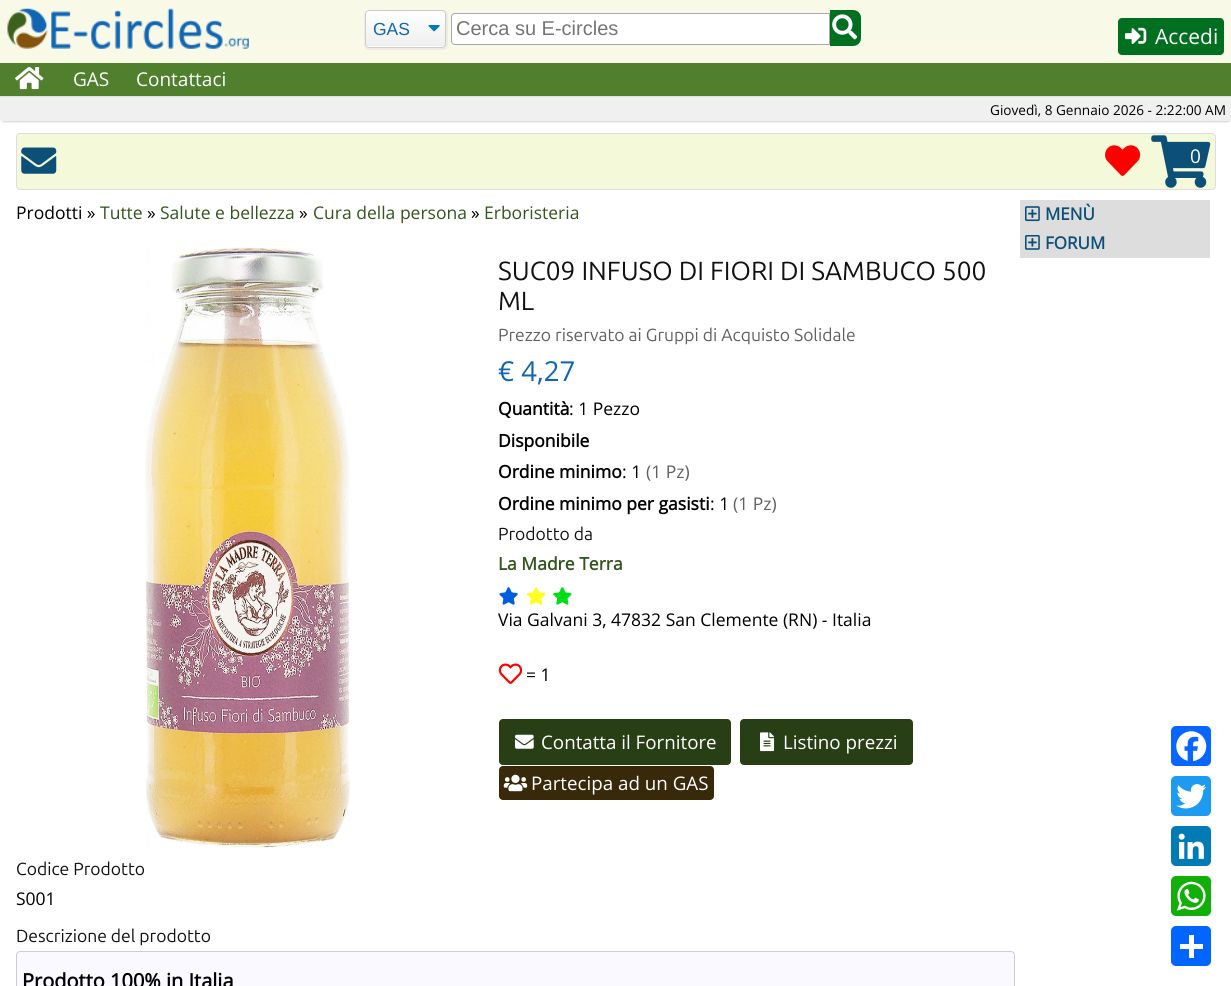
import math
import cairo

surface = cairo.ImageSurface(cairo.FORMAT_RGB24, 1231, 986)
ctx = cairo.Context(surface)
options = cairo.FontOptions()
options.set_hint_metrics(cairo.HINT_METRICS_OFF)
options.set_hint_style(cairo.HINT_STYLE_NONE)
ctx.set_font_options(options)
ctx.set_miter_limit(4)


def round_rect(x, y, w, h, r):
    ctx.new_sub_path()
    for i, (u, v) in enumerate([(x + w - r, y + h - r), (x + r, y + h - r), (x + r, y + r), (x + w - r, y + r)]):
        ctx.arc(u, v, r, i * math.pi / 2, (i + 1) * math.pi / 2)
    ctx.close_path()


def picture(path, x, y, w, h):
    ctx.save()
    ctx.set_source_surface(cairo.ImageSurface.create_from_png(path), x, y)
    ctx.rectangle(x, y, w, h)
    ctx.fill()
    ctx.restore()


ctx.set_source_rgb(1, 1, 1)
ctx.paint()
ctx.set_source_rgb(0.973, 0.973, 0.91)
ctx.rectangle(0, 0, 1231, 63)
ctx.fill()
picture("img1.png", 7, 8, 242, 41)
ctx.set_source_rgb(0.933, 0.933, 0.875)
ctx.new_path()
ctx.move_to(443, 10)
ctx.line_to(442, 10)
ctx.curve_to(444, 10, 446, 12, 446, 14)
ctx.line_to(446, 44)
ctx.curve_to(446, 46, 444, 48, 442, 48)
ctx.line_to(368, 48)
ctx.curve_to(366, 48, 365, 46, 365, 44)
ctx.line_to(365, 14)
ctx.line_to(365, 11)
ctx.curve_to(365, 12, 364, 14, 364, 15)
ctx.line_to(364, 45)
ctx.curve_to(364, 48, 366, 50, 369, 50)
ctx.line_to(443, 50)
ctx.curve_to(446, 50, 448, 48, 448, 45)
ctx.line_to(448, 15)
ctx.curve_to(448, 12, 446, 10, 443, 10)
ctx.close_path()
ctx.fill()
ctx.save()
round_rect(365, 10, 81, 38, 4)
ctx.clip()
gradient = cairo.LinearGradient(405, 11, 405, 46)
gradient.add_color_stop_rgba(0, 1, 1, 1, 1)
gradient.add_color_stop_rgba(1, 0.937, 0.937, 0.937, 1)
ctx.set_source(gradient)
ctx.rectangle(365, 11, 81, 35)
ctx.fill()
gradient = cairo.LinearGradient(405, 46, 405, 81)
gradient.add_color_stop_rgba(0, 1, 1, 1, 1)
gradient.add_color_stop_rgba(1, 0.937, 0.937, 0.937, 1)
ctx.set_source(gradient)
ctx.rectangle(365, 46, 81, 2)
ctx.fill()
ctx.restore()
picture("img2.png", 428, 25, 12, 7)
round_rect(365.5, 10.5, 80, 37, 3.5)
ctx.set_source_rgb(0.8, 0.8, 0.8)
ctx.set_line_width(1)
ctx.stroke()
ctx.select_font_face("Liberation Sans")
ctx.set_font_size(17.5)
ctx.set_source_rgb(0.063, 0.4, 0.702)
ctx.move_to(373, 35)
ctx.show_text("GAS")
ctx.set_source_rgb(1, 1, 1)
ctx.new_path()
ctx.move_to(455, 13.5)
ctx.line_to(829.5, 13.5)
ctx.line_to(829.5, 44.5)
ctx.line_to(455, 44.5)
ctx.curve_to(453, 44.5, 451.5, 43, 451.5, 41)
ctx.line_to(451.5, 17)
ctx.curve_to(451.5, 15, 453, 13.5, 455, 13.5)
ctx.close_path()
ctx.fill_preserve()
ctx.set_source_rgb(0.667, 0.667, 0.667)
ctx.stroke()
ctx.set_font_size(20)
ctx.set_source_rgb(0.459, 0.459, 0.459)
ctx.move_to(456, 35)
ctx.show_text("Cerca su E-circles")
ctx.set_source_rgb(0, 0.439, 0.125)
ctx.new_path()
ctx.move_to(830, 10)
ctx.line_to(853, 10)
ctx.curve_to(857.5, 10, 861, 13.5, 861, 18)
ctx.line_to(861, 38)
ctx.curve_to(861, 42.5, 857.5, 46, 853, 46)
ctx.line_to(830, 46)
ctx.close_path()
ctx.fill()
picture("img3.png", 832, 14, 26, 26)
round_rect(1118, 18, 106, 37, 4)
ctx.fill()
picture("img4.png", 1125, 27, 22, 18)
ctx.select_font_face("Open Sans")
ctx.set_font_size(21)
ctx.set_source_rgb(1, 1, 1)
ctx.move_to(1155, 44)
ctx.show_text("Accedi")
ctx.set_source_rgb(0.314, 0.498, 0.176)
ctx.rectangle(0, 63, 1231, 33)
ctx.fill()
picture("img5.png", 15, 67, 29, 23)
ctx.set_font_size(19)
ctx.set_source_rgb(1, 1, 1)
ctx.move_to(73, 86)
ctx.show_text("GAS")
ctx.move_to(136, 86)
ctx.show_text("Contattaci")
ctx.set_source_rgb(0.941, 0.941, 0.941)
ctx.new_path()
ctx.move_to(0, 96)
ctx.line_to(1231, 96)
ctx.line_to(1231, 119)
ctx.curve_to(1231, 121, 1229, 123, 1227, 123)
ctx.line_to(4, 123)
ctx.curve_to(2, 123, 0, 121, 0, 119)
ctx.close_path()
ctx.fill()
ctx.set_source_rgb(0.878, 0.878, 0.878)
ctx.rectangle(0, 96, 1231, 1)
ctx.fill()
ctx.rectangle(3, 121, 1227, 1)
ctx.fill()
ctx.set_font_size(13.6)
ctx.set_source_rgb(0, 0, 0)
ctx.move_to(990, 115)
ctx.show_text("Giovedì, 8 Gennaio 2026 - 2:22:00 AM")
ctx.set_source_rgb(0.953, 0.976, 0.851)
round_rect(16.5, 133.5, 1199, 56, 3.5)
ctx.fill_preserve()
ctx.set_source_rgb(0.867, 0.867, 0.867)
ctx.stroke()
picture("img6.png", 21, 147, 36, 27)
picture("img7.png", 1105, 145, 36, 31)
picture("img8.png", 1151, 135, 60, 53)
ctx.set_font_size(19)
ctx.set_source_rgb(1, 1, 1)
ctx.move_to(1190, 163)
ctx.show_text("0")
ctx.set_font_size(17.5)
ctx.set_source_rgb(0, 0, 0)
ctx.move_to(16, 219)
ctx.show_text("Prodotti »")
ctx.set_source_rgb(0.208, 0.333, 0.118)
ctx.move_to(100, 219)
ctx.show_text("Tutte")
ctx.set_source_rgb(0, 0, 0)
ctx.move_to(147, 219)
ctx.show_text("»")
ctx.set_source_rgb(0.208, 0.333, 0.118)
ctx.move_to(160, 219)
ctx.show_text("Salute e bellezza")
ctx.set_source_rgb(0, 0, 0)
ctx.move_to(299, 219)
ctx.show_text("»")
ctx.set_source_rgb(0.208, 0.333, 0.118)
ctx.move_to(313, 219)
ctx.show_text("Cura della persona")
ctx.set_source_rgb(0, 0, 0)
ctx.move_to(471, 219)
ctx.show_text("»")
ctx.set_source_rgb(0.208, 0.333, 0.118)
ctx.move_to(484, 219)
ctx.show_text("Erboristeria")
ctx.select_font_face("Ubuntu")
ctx.set_font_size(26.25)
ctx.set_source_rgb(0.067, 0.067, 0.067)
ctx.move_to(498, 280)
ctx.show_text("SUC09 INFUSO DI FIORI DI SAMBUCO 500")
ctx.move_to(498, 310)
ctx.show_text("ML")
ctx.set_font_size(17.5)
ctx.set_source_rgb(0.376, 0.376, 0.376)
ctx.move_to(498, 341)
ctx.show_text("Prezzo riservato ai Gruppi di Acquisto Solidale")
ctx.select_font_face("Open Sans")
ctx.set_font_size(27.5)
ctx.set_source_rgb(0.063, 0.4, 0.702)
ctx.move_to(498, 381)
ctx.show_text("€ 4,27")
ctx.select_font_face("Open Sans", cairo.FONT_SLANT_NORMAL, cairo.FONT_WEIGHT_BOLD)
ctx.set_font_size(17.5)
ctx.set_source_rgb(0, 0, 0)
ctx.move_to(498, 415)
ctx.show_text("Quantità")
ctx.select_font_face("Open Sans")
ctx.move_to(569, 415)
ctx.show_text(": 1 Pezzo")
ctx.select_font_face("Open Sans", cairo.FONT_SLANT_NORMAL, cairo.FONT_WEIGHT_BOLD)
ctx.move_to(498, 447)
ctx.show_text("Disponibile")
ctx.move_to(498, 478)
ctx.show_text("Ordine minimo")
ctx.select_font_face("Open Sans")
ctx.move_to(622, 478)
ctx.show_text(": 1")
ctx.set_source_rgb(0.376, 0.376, 0.376)
ctx.move_to(646, 478)
ctx.show_text("(1 Pz)")
ctx.select_font_face("Open Sans", cairo.FONT_SLANT_NORMAL, cairo.FONT_WEIGHT_BOLD)
ctx.set_source_rgb(0, 0, 0)
ctx.move_to(498, 510)
ctx.show_text("Ordine minimo per gasisti")
ctx.select_font_face("Open Sans")
ctx.move_to(710, 510)
ctx.show_text(": 1")
ctx.set_source_rgb(0.376, 0.376, 0.376)
ctx.move_to(733, 510)
ctx.show_text("(1 Pz)")
ctx.select_font_face("Ubuntu")
ctx.set_source_rgb(0.067, 0.067, 0.067)
ctx.move_to(498, 540)
ctx.show_text("Prodotto da")
ctx.select_font_face("Open Sans", cairo.FONT_SLANT_NORMAL, cairo.FONT_WEIGHT_BOLD)
ctx.set_source_rgb(0.208, 0.333, 0.118)
ctx.move_to(498, 570)
ctx.show_text("La Madre Terra")
picture("img9.png", 499, 587, 19, 18)
picture("img10.png", 527, 587, 19, 18)
picture("img11.png", 553, 587, 19, 18)
ctx.select_font_face("Open Sans")
ctx.set_source_rgb(0, 0, 0)
ctx.move_to(498, 626)
ctx.show_text("Via Galvani 3, 47832 San Clemente (RN) - Italia")
picture("img12.png", 498, 663, 25, 21)
ctx.move_to(526, 681)
ctx.show_text("= 1")
ctx.set_source_rgb(0.157, 0.247, 0.086)
round_rect(499, 719, 232, 46, 4)
ctx.fill()
picture("img13.png", 515, 734, 19, 15)
ctx.set_font_size(18.75)
ctx.set_source_rgb(1, 1, 1)
ctx.move_to(541, 749)
ctx.show_text("Contatta il Fornitore")
ctx.set_source_rgb(0.157, 0.247, 0.086)
round_rect(740, 719, 173, 46, 4)
ctx.fill()
picture("img14.png", 760, 732, 15, 20)
ctx.set_source_rgb(1, 1, 1)
ctx.move_to(783, 749)
ctx.show_text("Listino prezzi")
ctx.set_source_rgb(0.22, 0.161, 0.043)
round_rect(499, 766, 215, 34, 4)
ctx.fill()
picture("img15.png", 503, 774, 25, 18)
ctx.set_source_rgb(1, 1, 1)
ctx.move_to(531, 790)
ctx.show_text("Partecipa ad un GAS")
picture("img16.png", 145, 247, 207, 601)
ctx.select_font_face("Ubuntu")
ctx.set_font_size(17.5)
ctx.set_source_rgb(0.067, 0.067, 0.067)
ctx.move_to(16, 875)
ctx.show_text("Codice Prodotto")
ctx.select_font_face("Open Sans")
ctx.set_source_rgb(0, 0, 0)
ctx.move_to(16, 905)
ctx.show_text("S001")
ctx.select_font_face("Ubuntu")
ctx.set_source_rgb(0.067, 0.067, 0.067)
ctx.move_to(16, 942)
ctx.show_text("Descrizione del prodotto")
ctx.set_source_rgb(0.973, 0.973, 1)
round_rect(16.5, 951.5, 998, 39, 3.5)
ctx.fill_preserve()
ctx.set_source_rgb(0.8, 0.8, 0.8)
ctx.stroke()
ctx.select_font_face("Open Sans", cairo.FONT_SLANT_NORMAL, cairo.FONT_WEIGHT_BOLD)
ctx.set_font_size(20)
ctx.set_source_rgb(0, 0, 0)
ctx.move_to(22, 988)
ctx.show_text("Prodotto 100% in Italia")
ctx.set_source_rgb(0.867, 0.867, 0.867)
ctx.rectangle(1020, 200, 190, 58)
ctx.fill()
picture("img17.png", 1025, 206, 15, 16)
ctx.set_font_size(17)
ctx.set_source_rgb(0.047, 0.314, 0.471)
ctx.move_to(1045, 220)
ctx.show_text("MENÙ")
picture("img18.png", 1025, 235, 15, 15)
ctx.move_to(1045, 249)
ctx.show_text("FORUM")
ctx.set_source_rgb(0.031, 0.4, 1)
round_rect(1171, 726, 40, 40, 5)
ctx.fill()
picture("img19.png", 1176, 731, 31, 31)
ctx.set_source_rgb(0.114, 0.608, 0.941)
round_rect(1171, 776, 40, 40, 5)
ctx.fill()
picture("img20.png", 1176, 784, 31, 25)
ctx.set_source_rgb(0, 0.482, 0.71)
round_rect(1171, 826, 40, 40, 5)
ctx.fill()
picture("img21.png", 1178, 833, 26, 26)
ctx.set_source_rgb(0.071, 0.686, 0.039)
round_rect(1171, 876, 40, 40, 5)
ctx.fill()
picture("img22.png", 1176, 881, 30, 30)
ctx.set_source_rgb(0.004, 0.4, 1)
round_rect(1171, 926, 40, 40, 5)
ctx.fill()
ctx.set_source_rgb(1, 1, 1)
ctx.rectangle(1189, 935, 5, 23)
ctx.fill()
ctx.rectangle(1180, 944, 23, 5)
ctx.fill()
surface.write_to_png("page.png")
